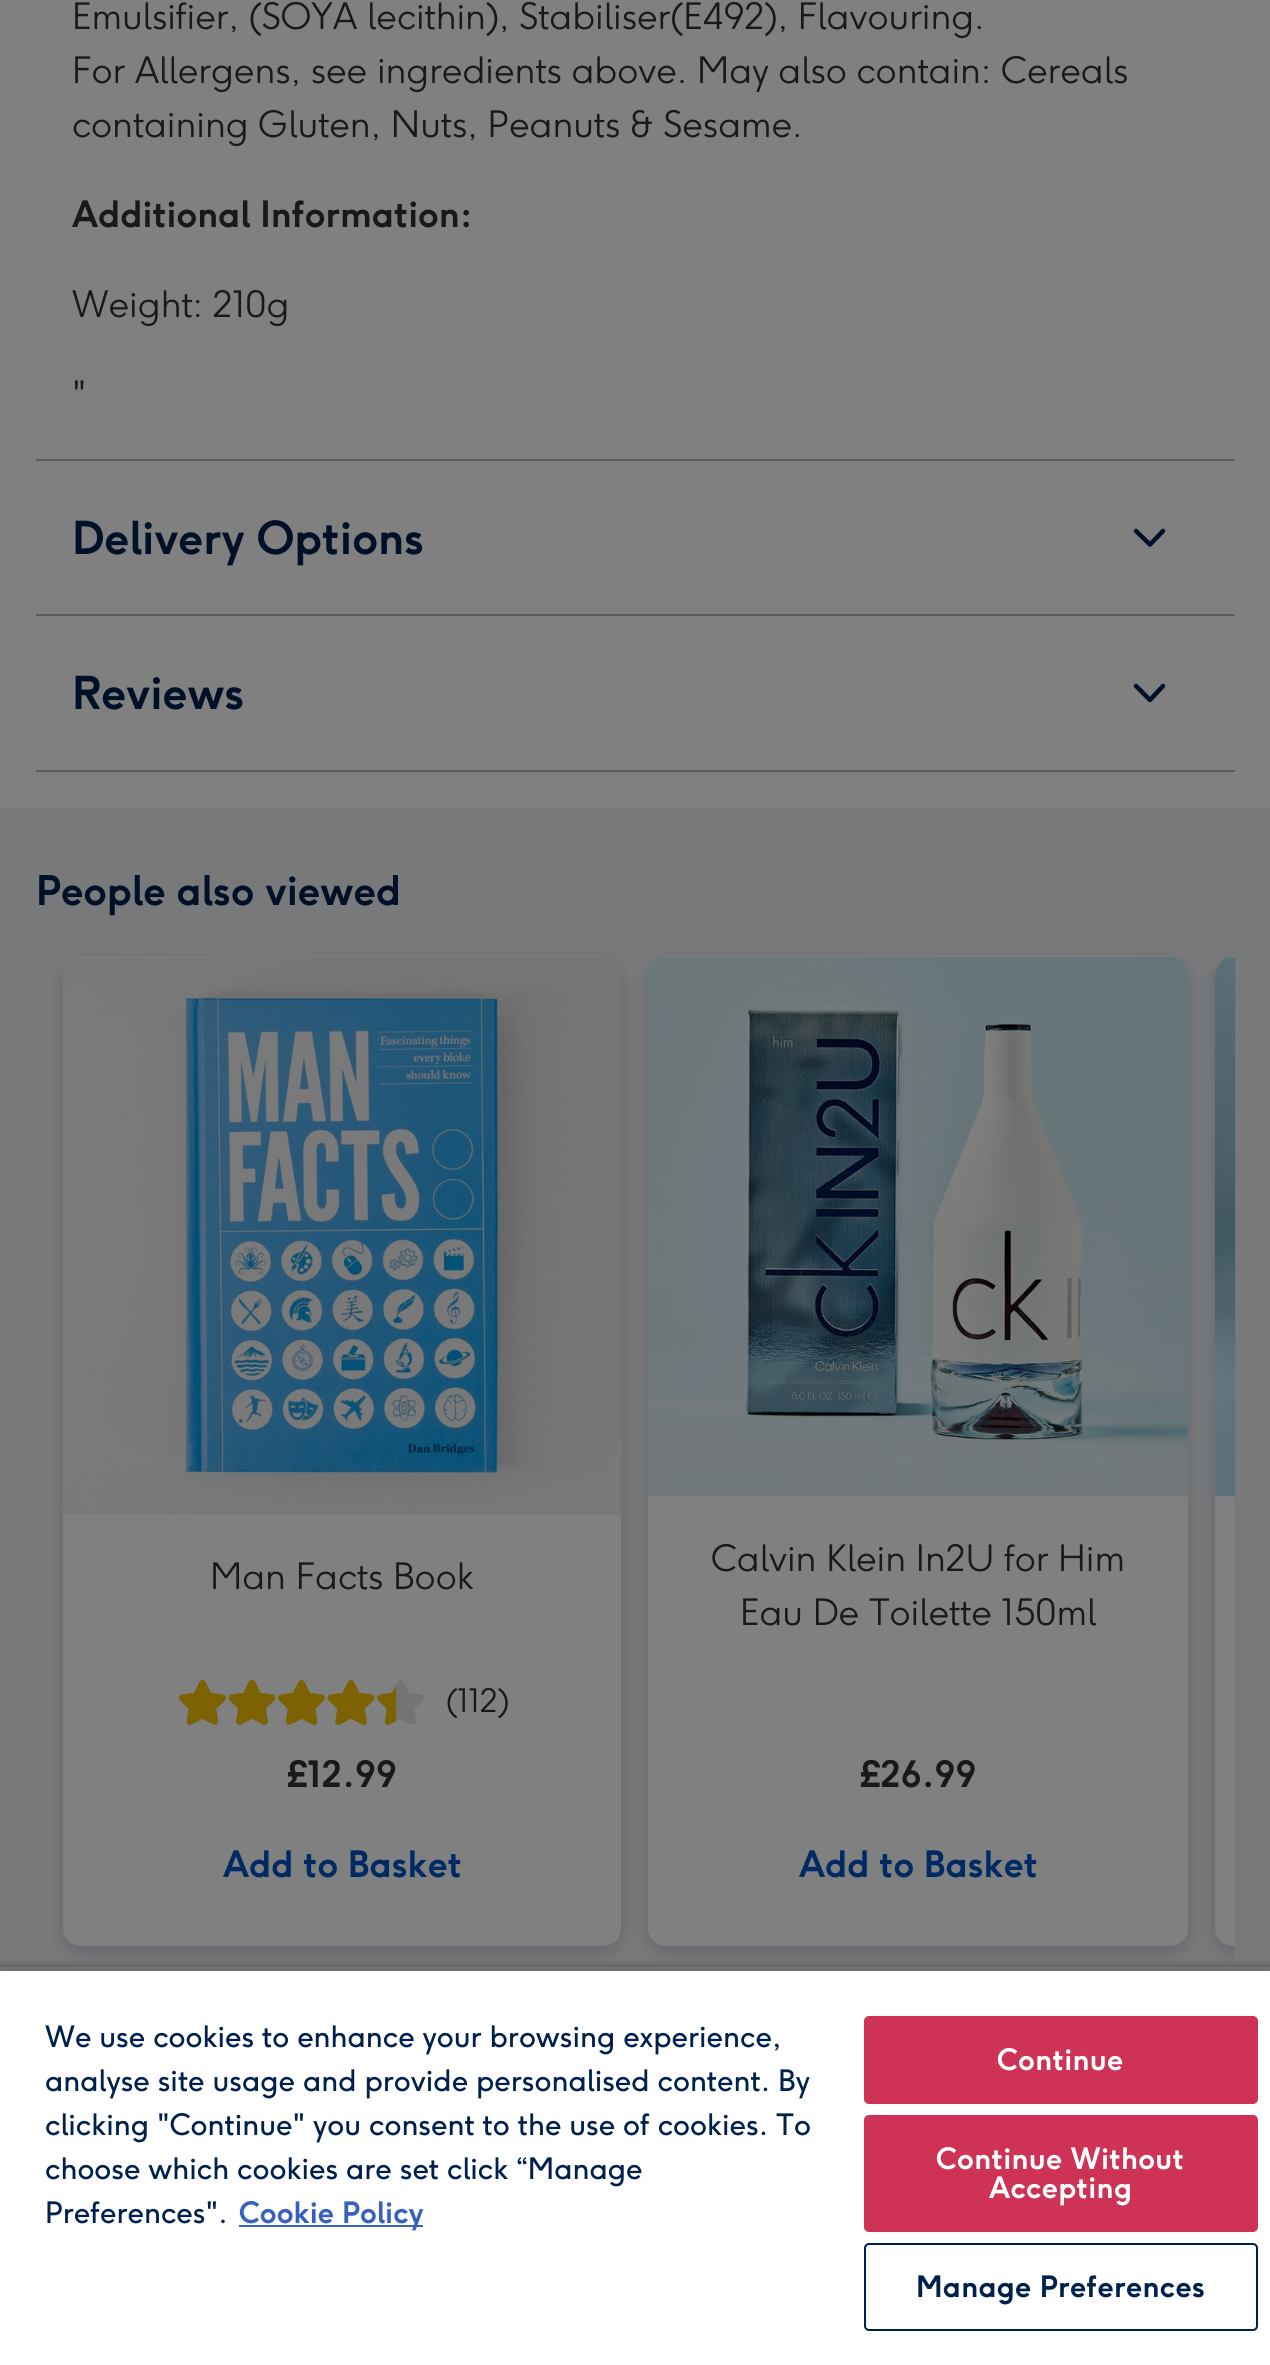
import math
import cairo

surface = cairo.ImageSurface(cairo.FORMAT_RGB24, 1270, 2365)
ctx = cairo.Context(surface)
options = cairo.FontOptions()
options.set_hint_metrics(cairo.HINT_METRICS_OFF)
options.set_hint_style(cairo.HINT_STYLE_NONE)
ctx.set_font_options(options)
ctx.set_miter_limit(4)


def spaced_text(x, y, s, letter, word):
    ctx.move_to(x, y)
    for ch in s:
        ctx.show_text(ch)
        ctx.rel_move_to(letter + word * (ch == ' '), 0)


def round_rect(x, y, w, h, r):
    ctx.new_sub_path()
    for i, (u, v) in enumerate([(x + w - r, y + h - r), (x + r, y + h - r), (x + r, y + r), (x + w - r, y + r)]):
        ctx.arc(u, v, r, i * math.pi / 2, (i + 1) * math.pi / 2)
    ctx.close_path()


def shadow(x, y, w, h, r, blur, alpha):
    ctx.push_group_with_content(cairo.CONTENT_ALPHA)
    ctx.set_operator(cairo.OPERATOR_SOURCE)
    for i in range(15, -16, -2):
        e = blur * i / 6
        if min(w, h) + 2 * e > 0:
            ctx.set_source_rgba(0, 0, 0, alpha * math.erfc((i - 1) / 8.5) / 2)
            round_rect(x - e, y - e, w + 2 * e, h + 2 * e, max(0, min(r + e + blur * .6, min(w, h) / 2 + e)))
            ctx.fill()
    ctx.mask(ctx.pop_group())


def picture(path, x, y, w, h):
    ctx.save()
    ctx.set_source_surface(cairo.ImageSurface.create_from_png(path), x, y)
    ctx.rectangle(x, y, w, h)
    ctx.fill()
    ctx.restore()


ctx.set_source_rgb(0.502, 0.502, 0.502)
ctx.paint()
ctx.set_source_rgb(0.365, 0.365, 0.365)
ctx.rectangle(36, 770, 1199, 2)
ctx.fill()
ctx.select_font_face("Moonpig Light")
ctx.set_font_size(36)
ctx.set_source_rgb(0.098, 0.098, 0.098)
ctx.move_to(72, 29)
ctx.show_text("Emulsifier, (SOYA lecithin), Stabiliser(E492), Flavouring.")
ctx.move_to(72, 83)
ctx.show_text("For Allergens, see ingredients above. May also contain: Cereals")
ctx.move_to(72, 137)
ctx.show_text("containing Gluten, Nuts, Peanuts & Sesame.")
ctx.select_font_face("Moonpig", cairo.FONT_SLANT_NORMAL, cairo.FONT_WEIGHT_BOLD)
ctx.move_to(72, 227)
ctx.show_text("Additional Information:")
ctx.select_font_face("Moonpig Light")
ctx.move_to(72, 317)
ctx.show_text("Weight: 210g")
ctx.move_to(72, 407)
ctx.show_text("\"")
ctx.set_source_rgb(0.365, 0.365, 0.365)
ctx.rectangle(36, 459, 1199, 2)
ctx.fill()
ctx.select_font_face("Moonpig", cairo.FONT_SLANT_NORMAL, cairo.FONT_WEIGHT_BOLD)
ctx.set_font_size(45)
ctx.set_source_rgb(0, 0.063, 0.153)
ctx.move_to(72, 554)
ctx.show_text("Delivery Options")
ctx.new_path()
ctx.move_to(1136, 531)
ctx.line_to(1150, 544.5)
ctx.line_to(1163, 531)
ctx.set_line_width(4.5)
ctx.set_line_cap(cairo.LINE_CAP_ROUND)
ctx.set_line_join(cairo.LINE_JOIN_ROUND)
ctx.stroke()
ctx.set_source_rgb(0.365, 0.365, 0.365)
ctx.rectangle(36, 614, 1199, 2)
ctx.fill()
ctx.set_source_rgb(0, 0.063, 0.153)
ctx.move_to(72, 709)
ctx.show_text("Reviews")
ctx.new_path()
ctx.move_to(1136, 686)
ctx.line_to(1150, 700)
ctx.line_to(1163, 686)
ctx.stroke()
ctx.set_source_rgb(0.471, 0.475, 0.478)
ctx.rectangle(0, 808, 1270, 1163)
ctx.fill()
ctx.set_font_size(40.5)
ctx.set_source_rgb(0, 0.063, 0.153)
ctx.move_to(36, 905)
ctx.show_text("People also viewed")
ctx.set_source_rgb(0, 0.008, 0.153)
shadow(63, 963, 558, 990, 18, 9, 0.15)
ctx.set_source_rgb(0.502, 0.502, 0.502)
round_rect(63, 956, 558, 990, 18)
ctx.fill()
picture("img1.png", 63, 956, 558, 559)
ctx.select_font_face("Moonpig Light")
ctx.set_font_size(36)
ctx.set_source_rgb(0.098, 0.098, 0.098)
ctx.move_to(210, 1589)
ctx.show_text("Man Facts Book")
picture("img3.png", 179, 1680, 47, 45)
picture("img2.png", 179, 1679, 47, 46)
picture("img4.png", 228, 1680, 48, 45)
picture("img5.png", 228, 1680, 48, 45)
picture("img3.png", 278, 1680, 47, 45)
picture("img2.png", 278, 1679, 47, 46)
picture("img4.png", 327, 1680, 48, 45)
picture("img5.png", 327, 1680, 48, 45)
picture("img3.png", 377, 1680, 47, 45)
picture("img6.png", 377, 1685, 19, 40)
ctx.set_font_size(32)
ctx.move_to(446, 1712)
ctx.show_text("(112)")
ctx.select_font_face("Moonpig", cairo.FONT_SLANT_NORMAL, cairo.FONT_WEIGHT_BOLD)
ctx.set_font_size(36)
ctx.move_to(287, 1787)
ctx.show_text("£12.99")
ctx.set_source_rgb(0, 0.165, 0.392)
ctx.move_to(223, 1877)
ctx.show_text("Add to Basket")
ctx.set_source_rgb(0, 0.008, 0.153)
shadow(648, 963, 540, 990, 18, 9, 0.15)
ctx.set_source_rgb(0.502, 0.502, 0.502)
round_rect(648, 956, 540, 990, 18)
ctx.fill()
picture("img7.png", 648, 956, 540, 541)
ctx.select_font_face("Moonpig Light")
ctx.set_source_rgb(0.098, 0.098, 0.098)
ctx.move_to(711, 1571)
ctx.show_text("Calvin Klein In2U for Him")
ctx.move_to(740, 1625)
ctx.show_text("Eau De Toilette 150ml")
ctx.select_font_face("Moonpig", cairo.FONT_SLANT_NORMAL, cairo.FONT_WEIGHT_BOLD)
ctx.move_to(860, 1787)
ctx.show_text("£26.99")
ctx.set_source_rgb(0, 0.165, 0.392)
ctx.move_to(799, 1877)
ctx.show_text("Add to Basket")
ctx.save()
ctx.rectangle(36, 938, 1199, 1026)
ctx.clip()
ctx.set_source_rgb(0, 0.008, 0.153)
shadow(1215, 963, 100, 990, 18, 9, 0.15)
ctx.restore()
ctx.set_source_rgb(0.502, 0.502, 0.502)
ctx.new_path()
ctx.move_to(1233, 956)
ctx.line_to(1235, 956)
ctx.line_to(1235, 1946)
ctx.line_to(1233, 1946)
ctx.curve_to(1223, 1946, 1215, 1938, 1215, 1928)
ctx.line_to(1215, 974)
ctx.curve_to(1215, 964, 1223, 956, 1233, 956)
ctx.close_path()
ctx.fill()
picture("img8.png", 1215, 956, 21, 541)
ctx.save()
ctx.rectangle(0, 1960, 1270, 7)
ctx.clip()
ctx.set_source_rgb(0, 0, 0)
shadow(0, 1967, 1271, 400, 0, 4.5, 0.35)
ctx.restore()
ctx.save()
ctx.rectangle(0, 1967, 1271, 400)
ctx.clip()
ctx.set_source_rgb(0, 0, 0)
shadow(0, 1971, 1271, 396, 0, 4.5, 0.2)
ctx.restore()
ctx.set_source_rgb(1, 1, 1)
ctx.rectangle(0, 1971, 1270, 394)
ctx.fill()
ctx.select_font_face("Moonpig")
ctx.set_font_size(29.25)
ctx.set_source_rgb(0, 0.125, 0.302)
ctx.move_to(45, 2047)
ctx.show_text("We use cookies to enhance your browsing experience,")
ctx.move_to(45, 2091)
ctx.show_text("analyse site usage and provide personalised content. By")
ctx.move_to(45, 2135)
ctx.show_text("clicking \"Continue\" you consent to the use of cookies. To")
ctx.move_to(45, 2179)
ctx.show_text("choose which cookies are set click “Manage")
ctx.move_to(45, 2223)
ctx.show_text("Preferences\".")
ctx.set_source_rgb(0.22, 0.376, 0.745)
ctx.rectangle(239, 2225, 184, 2)
ctx.fill()
ctx.select_font_face("Moonpig", cairo.FONT_SLANT_NORMAL, cairo.FONT_WEIGHT_BOLD)
ctx.move_to(239, 2223)
ctx.show_text("Cookie Policy")
ctx.set_source_rgb(0.808, 0.2, 0.337)
round_rect(865, 2017, 392, 86, 4)
ctx.fill_preserve()
ctx.set_line_width(2)
ctx.set_line_cap(cairo.LINE_CAP_BUTT)
ctx.set_line_join(cairo.LINE_JOIN_MITER)
ctx.stroke()
ctx.set_source_rgb(1, 1, 1)
spaced_text(997, 2070, "Continue", 0.25, 0)
ctx.set_source_rgb(0.808, 0.2, 0.337)
round_rect(865, 2116, 392, 115, 4)
ctx.fill_preserve()
ctx.stroke()
ctx.set_source_rgb(1, 1, 1)
spaced_text(936, 2169, "Continue Without", 0.25, 0)
spaced_text(989, 2198, "Accepting", 0.25, 0)
round_rect(865, 2244, 392, 86, 4)
ctx.set_source_rgb(0, 0.125, 0.302)
ctx.stroke()
spaced_text(916, 2297, "Manage Preferences", 0.25, 0)
surface.write_to_png("page.png")
